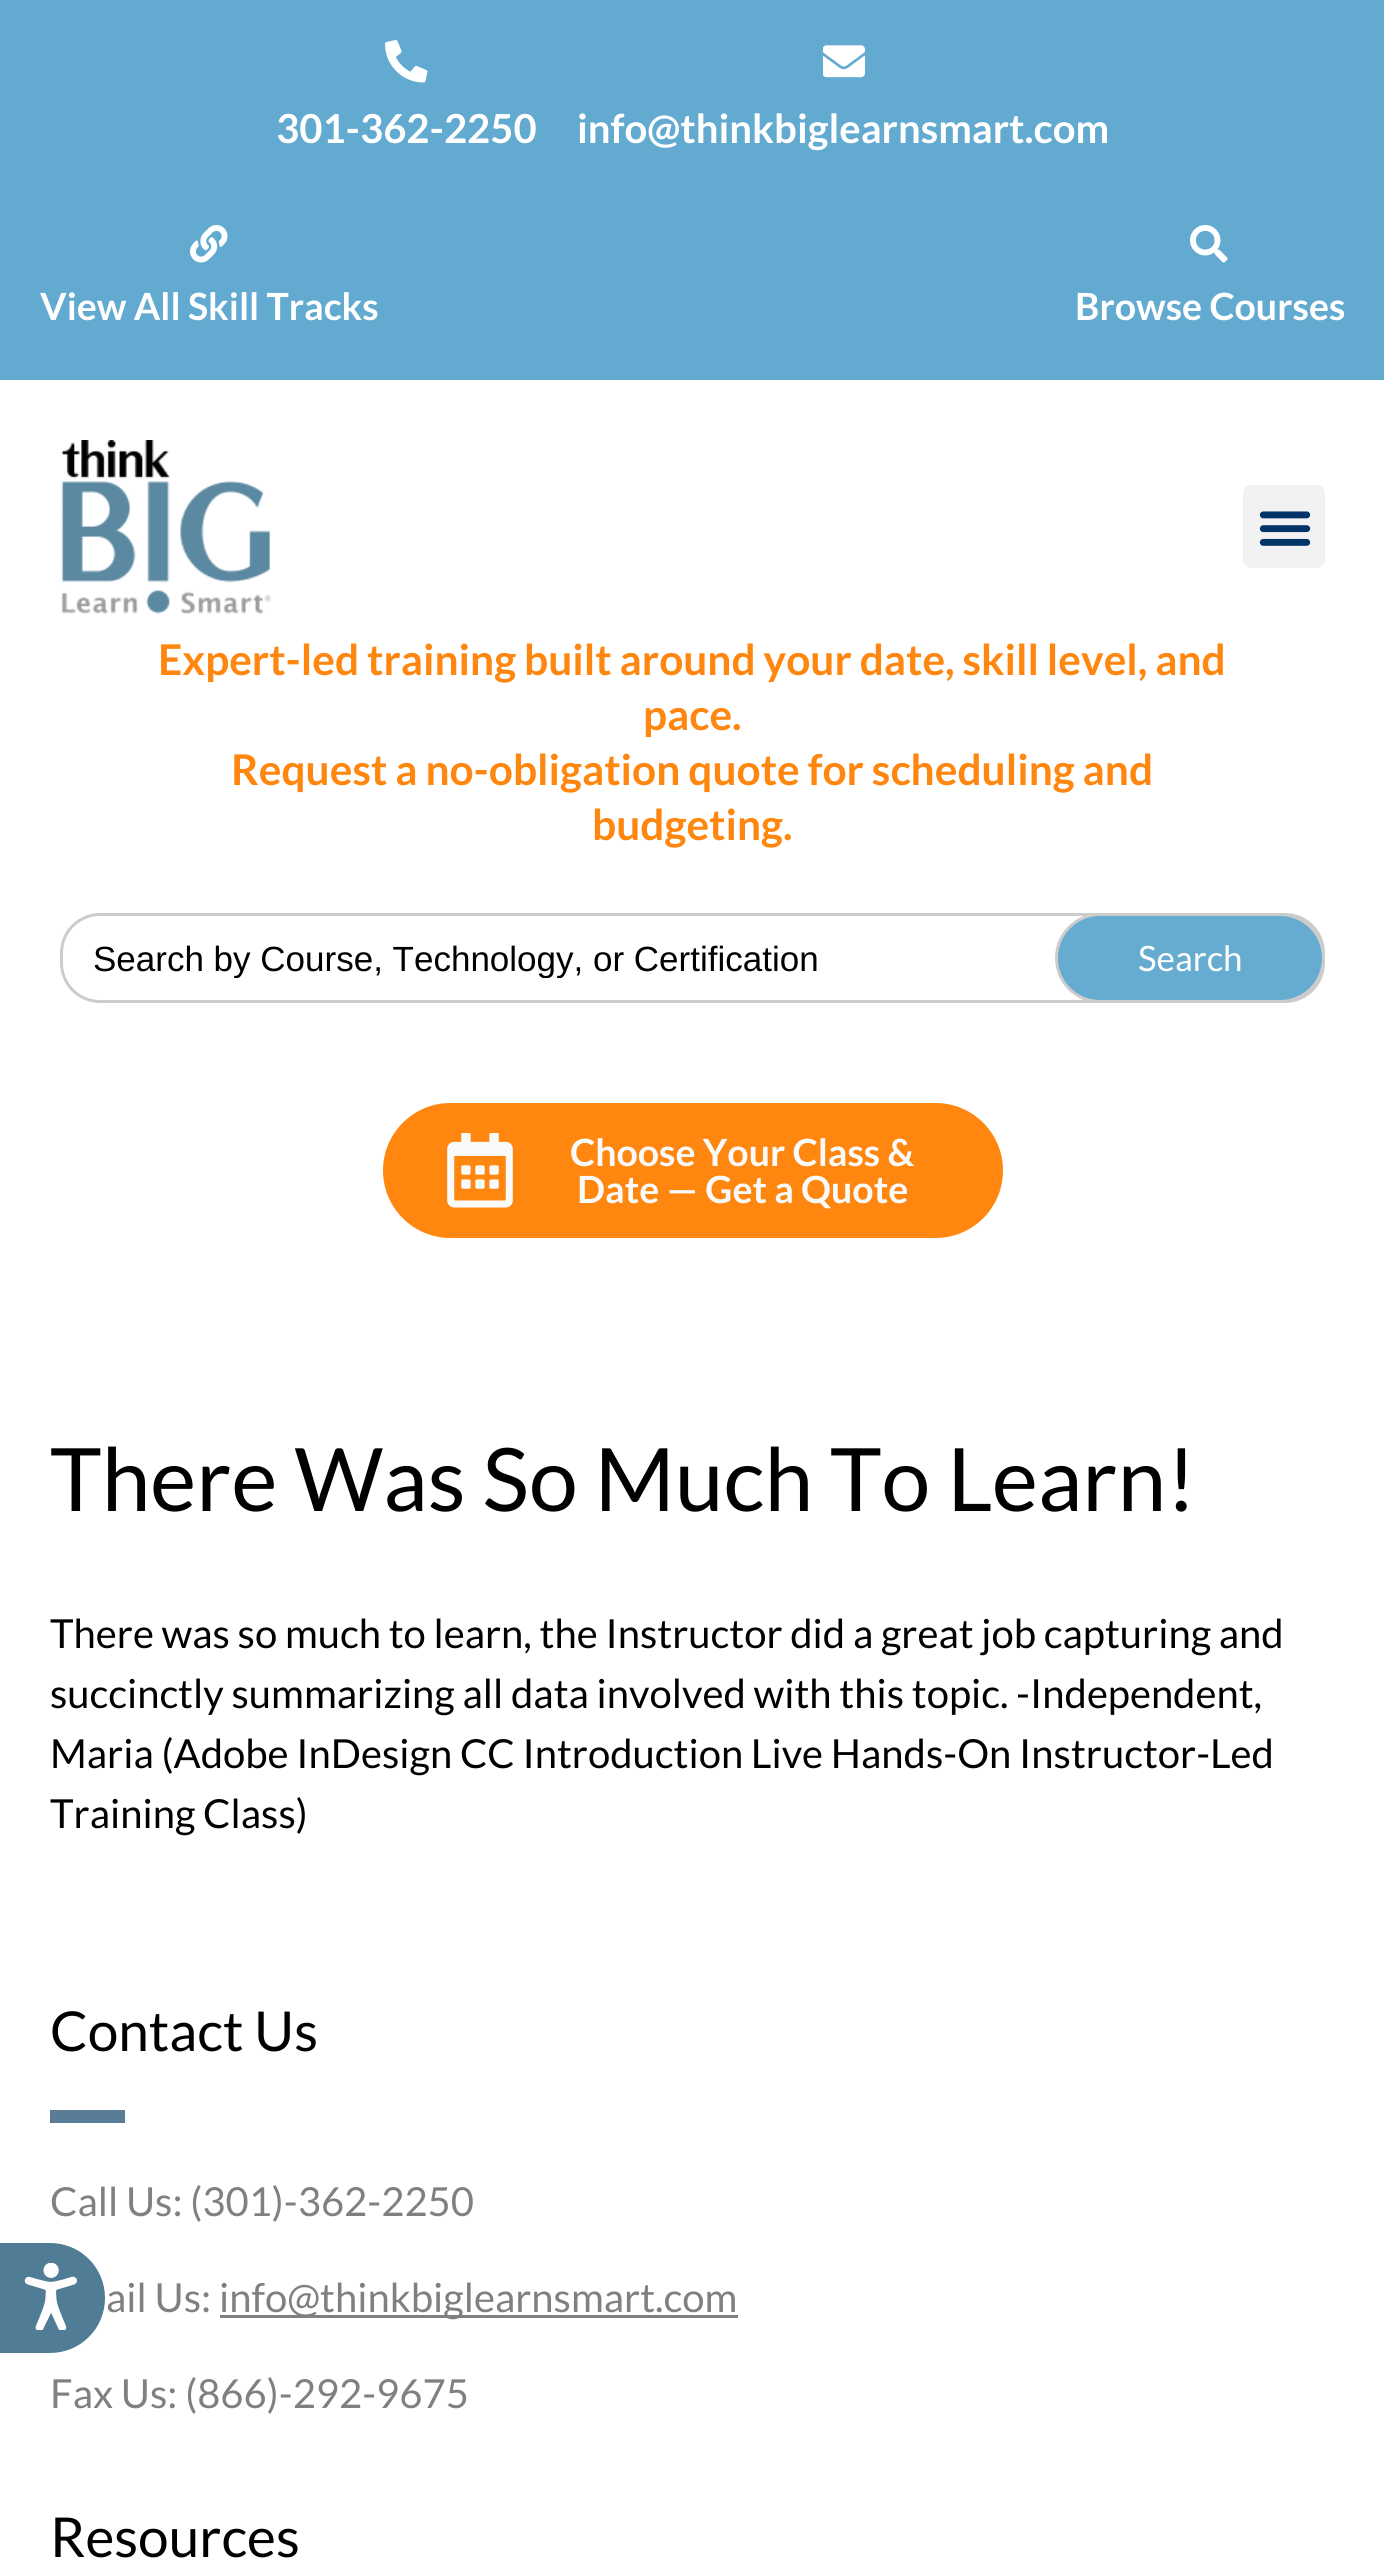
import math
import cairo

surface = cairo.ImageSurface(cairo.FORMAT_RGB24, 1384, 2568)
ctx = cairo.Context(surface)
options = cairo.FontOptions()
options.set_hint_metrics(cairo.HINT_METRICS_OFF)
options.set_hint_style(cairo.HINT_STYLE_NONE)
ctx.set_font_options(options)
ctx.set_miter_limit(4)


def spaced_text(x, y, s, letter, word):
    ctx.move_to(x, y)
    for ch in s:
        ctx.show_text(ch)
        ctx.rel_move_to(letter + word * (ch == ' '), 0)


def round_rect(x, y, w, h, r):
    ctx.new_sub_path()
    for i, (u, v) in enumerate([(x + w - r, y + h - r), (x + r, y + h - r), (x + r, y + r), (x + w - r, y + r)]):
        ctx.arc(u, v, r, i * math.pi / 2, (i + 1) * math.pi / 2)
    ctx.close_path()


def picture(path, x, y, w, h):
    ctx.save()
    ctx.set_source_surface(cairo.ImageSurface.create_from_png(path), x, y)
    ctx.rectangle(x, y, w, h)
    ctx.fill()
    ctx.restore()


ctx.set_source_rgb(1, 1, 1)
ctx.paint()
ctx.set_source_rgb(0.388, 0.667, 0.82)
ctx.rectangle(0, 0, 1384, 380)
ctx.fill()
picture("img1.png", 385, 40, 43, 43)
ctx.select_font_face("Lato", cairo.FONT_SLANT_NORMAL, cairo.FONT_WEIGHT_BOLD)
ctx.set_font_size(40)
ctx.set_source_rgb(1, 1, 1)
ctx.move_to(276, 143)
ctx.show_text("301-362-2250")
picture("img2.png", 823, 45, 42, 33)
ctx.move_to(577, 143)
ctx.show_text("info@thinkbiglearnsmart.com")
picture("img3.png", 190, 225, 38, 38)
ctx.set_font_size(37.5)
ctx.move_to(40, 320)
ctx.show_text("View All Skill Tracks")
picture("img4.png", 1190, 225, 38, 38)
ctx.move_to(1075, 320)
ctx.show_text("Browse Courses")
picture("img5.png", 61, 440, 211, 174)
ctx.set_source_rgb(0.949, 0.949, 0.949)
round_rect(1243, 485, 82, 83, 8)
ctx.fill()
picture("img6.png", 1259, 511, 52, 35)
ctx.set_font_size(42.4)
ctx.set_source_rgb(1, 0.525, 0.059)
spaced_text(158, 675, "Expert-led training built around your date, skill level, and", 0, -0.25)
ctx.move_to(643, 730)
ctx.show_text("pace.")
spaced_text(231, 785, "Request a no-obligation quote for scheduling and", 0, -0.25)
ctx.move_to(592, 840)
ctx.show_text("budgeting.")
round_rect(61.5, 914.5, 1262, 87, 38.5)
ctx.set_source_rgb(0.8, 0.8, 0.8)
ctx.set_line_width(3)
ctx.stroke()
ctx.save()
ctx.rectangle(93, 938, 1200, 40)
ctx.clip()
ctx.select_font_face("Liberation Sans")
ctx.set_font_size(35)
ctx.set_source_rgb(0, 0, 0)
ctx.move_to(93, 971)
ctx.show_text("Search by Course, Technology, or Certification")
ctx.restore()
ctx.set_source_rgb(0.396, 0.675, 0.816)
round_rect(1056.5, 914.5, 267, 87, 43.5)
ctx.fill_preserve()
ctx.set_source_rgb(0.8, 0.8, 0.8)
ctx.stroke()
ctx.select_font_face("Lato")
ctx.set_font_size(35)
ctx.set_source_rgb(1, 1, 1)
ctx.move_to(1138, 971)
ctx.show_text("Search")
ctx.set_source_rgb(1, 0.525, 0.059)
round_rect(383, 1103, 620, 135, 67.5)
ctx.fill()
picture("img7.png", 447, 1133, 66, 75)
ctx.select_font_face("Lato", cairo.FONT_SLANT_NORMAL, cairo.FONT_WEIGHT_BOLD)
ctx.set_font_size(37.5)
ctx.set_source_rgb(0.976, 0.98, 0.98)
ctx.move_to(570, 1166)
ctx.show_text("Choose Your Class &")
ctx.move_to(577, 1203)
ctx.show_text("Date — Get a Quote")
ctx.select_font_face("Lato")
ctx.set_font_size(87.5)
ctx.set_source_rgb(0, 0, 0)
ctx.move_to(50, 1511)
ctx.show_text("There Was So Much To Learn!")
ctx.set_font_size(40)
ctx.move_to(50, 1648)
ctx.show_text("There was so much to learn, the Instructor did a great job capturing and")
ctx.move_to(50, 1708)
ctx.show_text("succinctly summarizing all data involved with this topic. -Independent,")
ctx.move_to(50, 1768)
ctx.show_text("Maria (Adobe InDesign CC Introduction Live Hands-On Instructor-Led")
ctx.move_to(50, 1828)
ctx.show_text("Training Class)")
ctx.set_font_size(55)
ctx.move_to(50, 2051)
ctx.show_text("Contact Us")
ctx.set_source_rgb(0.353, 0.49, 0.592)
ctx.rectangle(50, 2110, 75, 13)
ctx.fill()
ctx.set_font_size(40)
ctx.set_source_rgb(0.502, 0.502, 0.502)
ctx.move_to(50, 2216)
ctx.show_text("Call Us: (301)-362-2250")
ctx.move_to(106, 2312)
ctx.show_text("ail Us:")
ctx.rectangle(220, 2315, 518, 3)
ctx.fill()
ctx.move_to(219, 2312)
ctx.show_text("info@thinkbiglearnsmart.com")
ctx.move_to(50, 2408)
ctx.show_text("Fax Us: (866)-292-9675")
ctx.set_font_size(55)
ctx.set_source_rgb(0, 0, 0)
ctx.move_to(50, 2557)
ctx.show_text("Resources")
ctx.set_source_rgb(0.314, 0.49, 0.584)
ctx.new_path()
ctx.move_to(0, 2243)
ctx.line_to(50, 2243)
ctx.curve_to(80.5, 2243, 105, 2267.5, 105, 2298)
ctx.curve_to(105, 2328.5, 80.5, 2353, 50, 2353)
ctx.line_to(0, 2353)
ctx.close_path()
ctx.fill()
picture("img8.png", 24, 2263, 53, 67)
surface.write_to_png("page.png")
